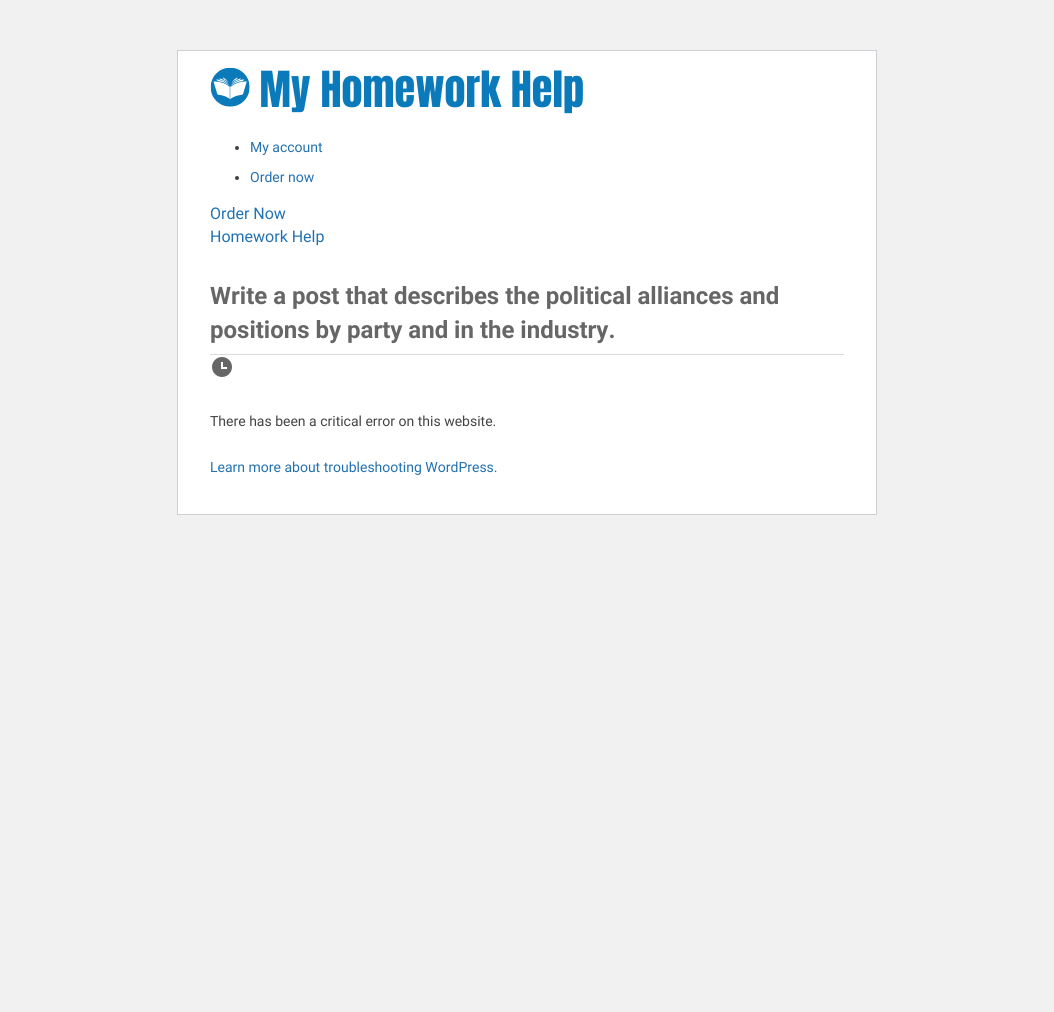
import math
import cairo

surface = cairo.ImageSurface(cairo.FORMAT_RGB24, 1054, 1012)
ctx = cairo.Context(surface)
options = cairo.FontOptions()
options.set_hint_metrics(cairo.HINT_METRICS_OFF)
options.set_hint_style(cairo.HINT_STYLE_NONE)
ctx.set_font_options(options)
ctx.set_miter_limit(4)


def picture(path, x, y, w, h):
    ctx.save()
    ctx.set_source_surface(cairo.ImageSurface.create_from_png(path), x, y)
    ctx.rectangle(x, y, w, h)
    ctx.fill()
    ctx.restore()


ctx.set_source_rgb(0.945, 0.945, 0.945)
ctx.paint()
ctx.set_source_rgb(1, 1, 1)
ctx.rectangle(177.5, 50.5, 699, 464)
ctx.fill_preserve()
ctx.set_source_rgb(0.8, 0.816, 0.831)
ctx.set_line_width(1)
ctx.stroke()
picture("img1.png", 210, 67, 373, 47)
ctx.set_source_rgb(0.267, 0.267, 0.267)
ctx.arc(237, 148, 2, 0, 2 * math.pi)
ctx.fill()
ctx.select_font_face("Roboto")
ctx.set_font_size(14)
ctx.set_source_rgb(0.133, 0.443, 0.694)
ctx.move_to(250, 152)
ctx.show_text("My account")
ctx.set_source_rgb(0.267, 0.267, 0.267)
ctx.new_path()
ctx.arc(237, 178, 2, 0, 2 * math.pi)
ctx.fill()
ctx.set_source_rgb(0.133, 0.443, 0.694)
ctx.move_to(250, 182)
ctx.show_text("Order now")
ctx.set_font_size(16)
ctx.move_to(210, 219)
ctx.show_text("Order Now")
ctx.move_to(210, 242)
ctx.show_text("Homework Help")
ctx.set_source_rgb(0.855, 0.855, 0.855)
ctx.rectangle(210, 354, 634, 1)
ctx.fill()
ctx.select_font_face("Roboto", cairo.FONT_SLANT_NORMAL, cairo.FONT_WEIGHT_BOLD)
ctx.set_font_size(24)
ctx.set_source_rgb(0.4, 0.4, 0.4)
ctx.move_to(210, 304)
ctx.show_text("Write a post that describes the political alliances and")
ctx.move_to(210, 338)
ctx.show_text("positions by party and in the industry.")
picture("img2.png", 212, 357, 20, 20)
ctx.select_font_face("Roboto")
ctx.set_font_size(14)
ctx.set_source_rgb(0.267, 0.267, 0.267)
ctx.move_to(210, 426)
ctx.show_text("There has been a critical error on this website.")
ctx.set_source_rgb(0.133, 0.443, 0.694)
ctx.move_to(210, 472)
ctx.show_text("Learn more about troubleshooting WordPress.")
surface.write_to_png("page.png")
